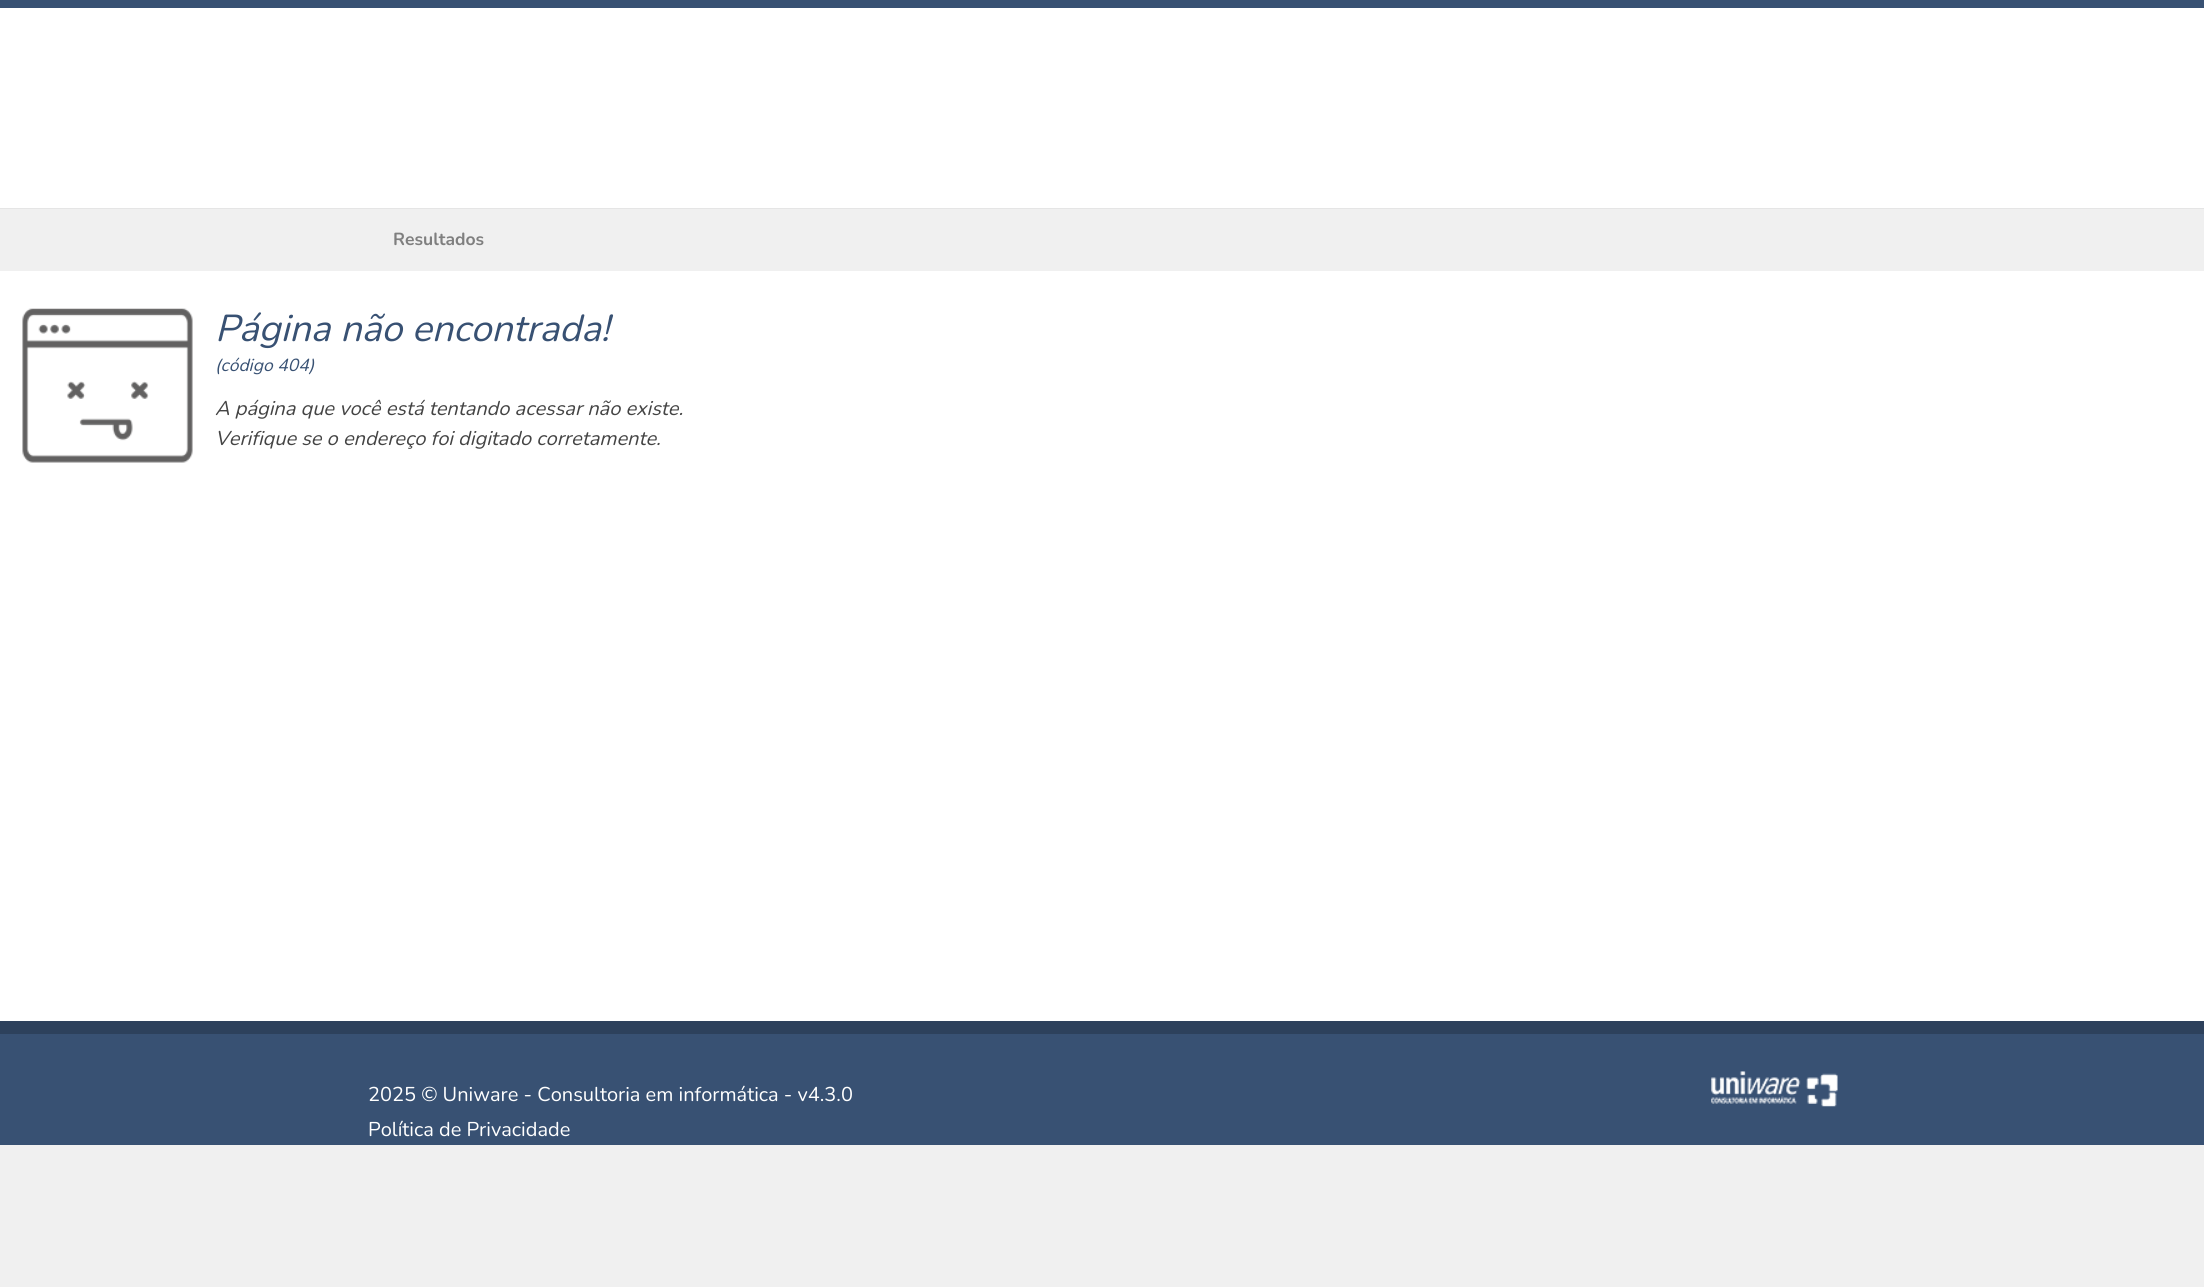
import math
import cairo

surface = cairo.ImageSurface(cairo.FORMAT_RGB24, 2204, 1287)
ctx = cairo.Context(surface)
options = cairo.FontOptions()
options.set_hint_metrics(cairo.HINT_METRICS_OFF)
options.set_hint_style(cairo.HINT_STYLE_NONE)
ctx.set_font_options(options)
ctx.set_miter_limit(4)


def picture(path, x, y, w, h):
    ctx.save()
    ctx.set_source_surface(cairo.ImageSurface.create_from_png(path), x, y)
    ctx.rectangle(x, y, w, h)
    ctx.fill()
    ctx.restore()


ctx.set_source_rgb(0.941, 0.941, 0.941)
ctx.paint()
ctx.set_source_rgb(1, 1, 1)
ctx.rectangle(0, 8, 2204, 200)
ctx.fill()
ctx.set_source_rgb(0.22, 0.318, 0.451)
ctx.rectangle(0, 0, 2204, 8)
ctx.fill()
ctx.set_source_rgb(0.898, 0.898, 0.898)
ctx.rectangle(0, 208, 2204, 1)
ctx.fill()
ctx.select_font_face("Nunito", cairo.FONT_SLANT_NORMAL, cairo.FONT_WEIGHT_BOLD)
ctx.set_font_size(17.5)
ctx.set_source_rgb(0.498, 0.498, 0.498)
ctx.move_to(393, 245)
ctx.show_text("Resultados")
ctx.set_source_rgb(1, 1, 1)
ctx.rectangle(0, 271, 2204, 750)
ctx.fill()
picture("img1.png", 22, 308, 171, 155)
ctx.select_font_face("Nunito", cairo.FONT_SLANT_ITALIC)
ctx.set_font_size(37.5)
ctx.set_source_rgb(0.22, 0.318, 0.451)
ctx.move_to(215, 341)
ctx.show_text("Página não encontrada!")
ctx.set_font_size(17.5)
ctx.move_to(215, 371)
ctx.show_text("(código 404)")
ctx.set_font_size(20)
ctx.set_source_rgb(0.267, 0.267, 0.267)
ctx.move_to(215, 415)
ctx.show_text("A página que você está tentando acessar não existe.")
ctx.move_to(215, 445)
ctx.show_text("Verifique se o endereço foi digitado corretamente.")
ctx.set_source_rgb(0.22, 0.318, 0.451)
ctx.rectangle(0, 1034, 2204, 111)
ctx.fill()
ctx.set_source_rgb(0.176, 0.255, 0.361)
ctx.rectangle(0, 1021, 2204, 13)
ctx.fill()
ctx.select_font_face("Nunito")
ctx.set_source_rgb(1, 1, 1)
ctx.move_to(368, 1101)
ctx.show_text("2025 © Uniware - Consultoria em informática - v4.3.0")
picture("img2.png", 1711, 1071, 127, 36)
ctx.move_to(368, 1136)
ctx.show_text("Política de Privacidade")
surface.write_to_png("page.png")
